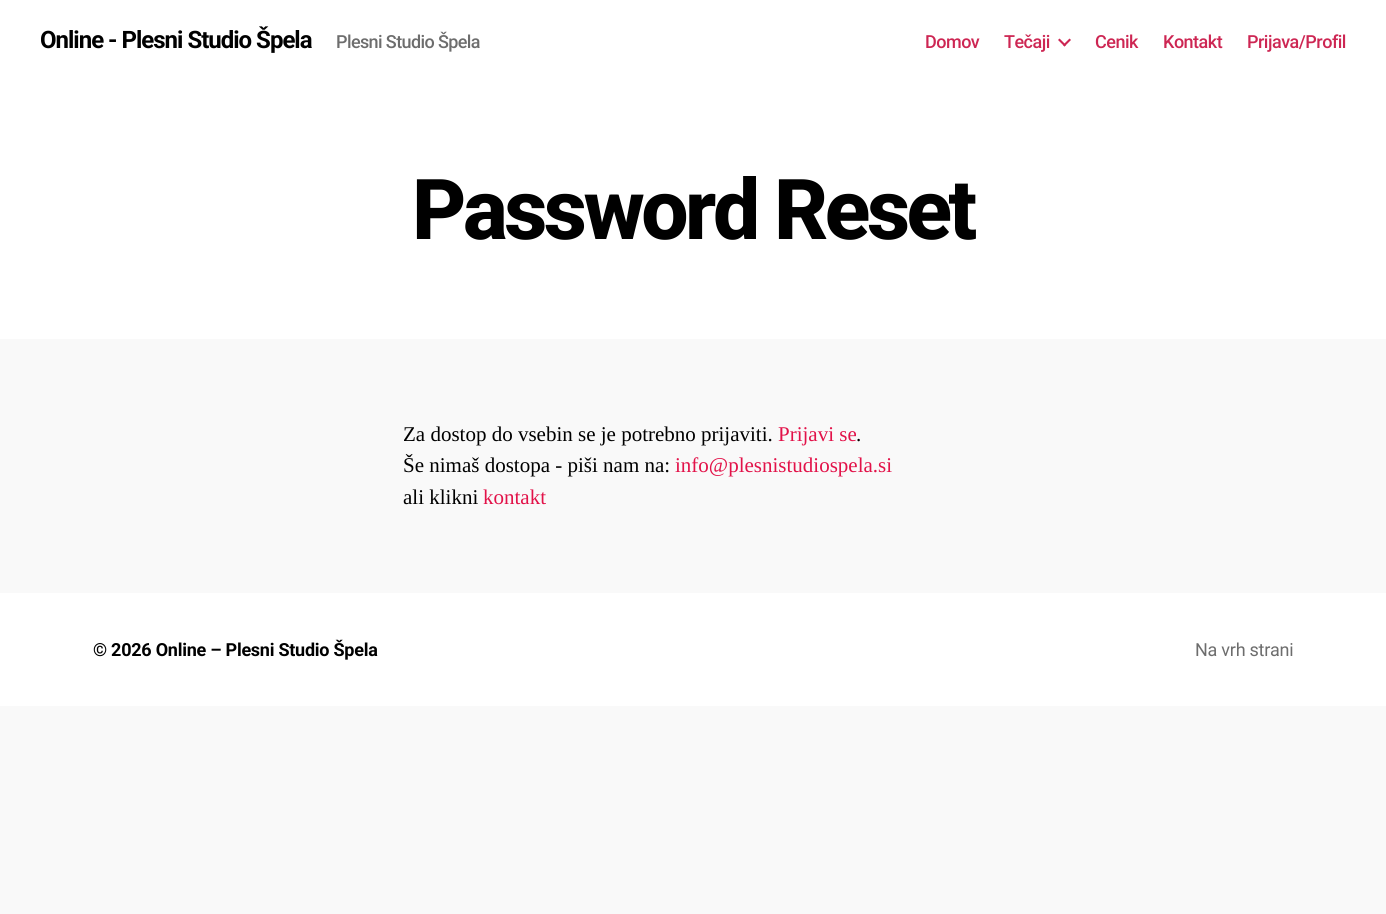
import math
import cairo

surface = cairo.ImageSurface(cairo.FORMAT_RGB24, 1386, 914)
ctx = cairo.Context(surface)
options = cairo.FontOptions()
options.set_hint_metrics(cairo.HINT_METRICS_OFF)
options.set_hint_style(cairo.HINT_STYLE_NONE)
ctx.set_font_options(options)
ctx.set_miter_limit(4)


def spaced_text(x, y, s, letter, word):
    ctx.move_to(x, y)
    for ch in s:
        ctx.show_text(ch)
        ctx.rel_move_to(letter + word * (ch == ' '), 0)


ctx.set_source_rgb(0.976, 0.976, 0.976)
ctx.paint()
ctx.set_source_rgb(1, 1, 1)
ctx.rectangle(0, 0, 1386, 339)
ctx.fill()
ctx.select_font_face("Roboto", cairo.FONT_SLANT_NORMAL, cairo.FONT_WEIGHT_BOLD)
ctx.set_font_size(24)
ctx.set_source_rgb(0, 0, 0)
spaced_text(40, 48, "Online - Plesni Studio Špela", -1, 0)
ctx.select_font_face("Roboto Medium")
ctx.set_font_size(18)
ctx.set_source_rgb(0.427, 0.427, 0.427)
spaced_text(336, 48, "Plesni Studio Špela", -0.6, 0)
ctx.set_source_rgb(0.804, 0.149, 0.325)
spaced_text(925, 48, "Domov", -0.5, 0)
spaced_text(1004, 48, "Tečaji", -0.5, 0)
ctx.new_path()
ctx.move_to(1058, 40)
ctx.line_to(1059.5, 38.5)
ctx.line_to(1066, 45)
ctx.line_to(1064.5, 46.5)
ctx.close_path()
ctx.fill()
ctx.new_path()
ctx.move_to(1063, 45)
ctx.line_to(1069.5, 38.5)
ctx.line_to(1071, 40)
ctx.line_to(1064.5, 46.5)
ctx.close_path()
ctx.fill()
spaced_text(1095, 48, "Cenik", -0.5, 0)
spaced_text(1163, 48, "Kontakt", -0.5, 0)
spaced_text(1247, 48, "Prijava/Profil", -0.5, 0)
ctx.select_font_face("Roboto ExtraBold")
ctx.set_font_size(84)
ctx.set_source_rgb(0, 0, 0)
spaced_text(412, 239, "Password Reset", -3.5, 0)
ctx.select_font_face("Liberation Serif")
ctx.set_font_size(21)
ctx.move_to(403, 441)
ctx.show_text("Za dostop do vsebin se je potrebno prijaviti.")
ctx.set_source_rgb(0.886, 0.071, 0.286)
ctx.move_to(778, 441)
ctx.show_text("Prijavi se")
ctx.set_source_rgb(0, 0, 0)
ctx.move_to(856, 441)
ctx.show_text(".")
ctx.move_to(403, 472)
ctx.show_text("Še nimaš dostopa - piši nam na:")
ctx.set_source_rgb(0.886, 0.071, 0.286)
ctx.move_to(675, 472)
ctx.show_text("info@plesnistudiospela.si")
ctx.set_source_rgb(0, 0, 0)
ctx.move_to(403, 504)
ctx.show_text("ali klikni")
ctx.set_source_rgb(0.886, 0.071, 0.286)
ctx.move_to(483, 504)
ctx.show_text("kontakt")
ctx.set_source_rgb(1, 1, 1)
ctx.rectangle(0, 593, 1386, 113)
ctx.fill()
ctx.select_font_face("Roboto", cairo.FONT_SLANT_NORMAL, cairo.FONT_WEIGHT_BOLD)
ctx.set_font_size(18)
ctx.set_source_rgb(0, 0, 0)
spaced_text(93, 656, "© 2026 Online – Plesni Studio Špela", -0.25, 0)
ctx.select_font_face("Roboto")
ctx.set_source_rgb(0.427, 0.427, 0.427)
spaced_text(1195, 656, "Na vrh strani", -0.25, 0)
surface.write_to_png("page.png")
